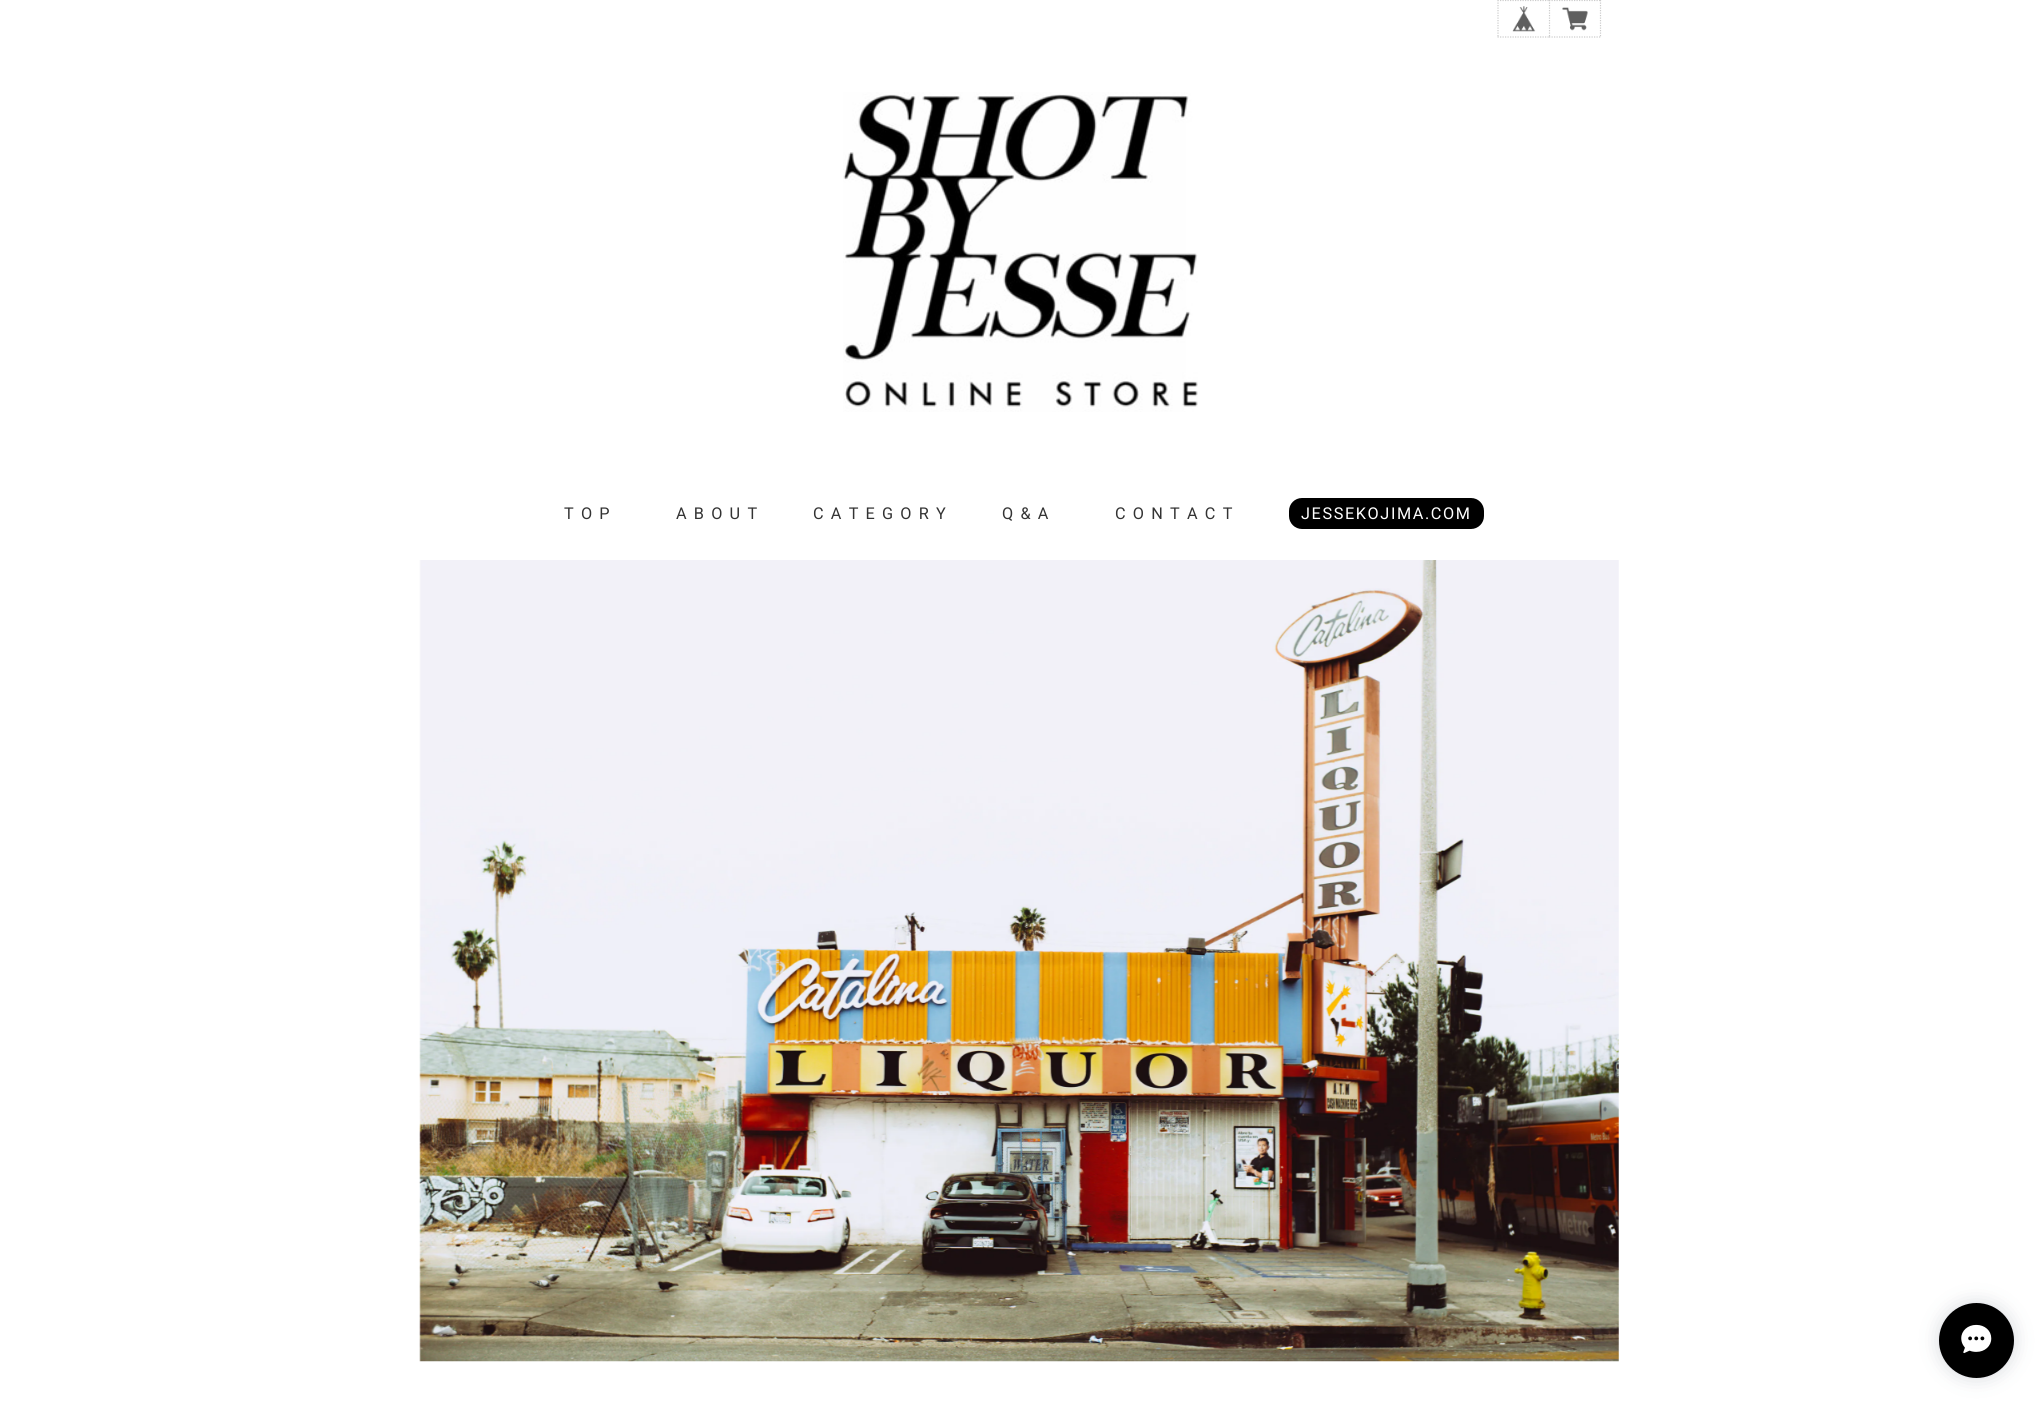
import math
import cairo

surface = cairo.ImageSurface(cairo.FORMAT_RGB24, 2038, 1402)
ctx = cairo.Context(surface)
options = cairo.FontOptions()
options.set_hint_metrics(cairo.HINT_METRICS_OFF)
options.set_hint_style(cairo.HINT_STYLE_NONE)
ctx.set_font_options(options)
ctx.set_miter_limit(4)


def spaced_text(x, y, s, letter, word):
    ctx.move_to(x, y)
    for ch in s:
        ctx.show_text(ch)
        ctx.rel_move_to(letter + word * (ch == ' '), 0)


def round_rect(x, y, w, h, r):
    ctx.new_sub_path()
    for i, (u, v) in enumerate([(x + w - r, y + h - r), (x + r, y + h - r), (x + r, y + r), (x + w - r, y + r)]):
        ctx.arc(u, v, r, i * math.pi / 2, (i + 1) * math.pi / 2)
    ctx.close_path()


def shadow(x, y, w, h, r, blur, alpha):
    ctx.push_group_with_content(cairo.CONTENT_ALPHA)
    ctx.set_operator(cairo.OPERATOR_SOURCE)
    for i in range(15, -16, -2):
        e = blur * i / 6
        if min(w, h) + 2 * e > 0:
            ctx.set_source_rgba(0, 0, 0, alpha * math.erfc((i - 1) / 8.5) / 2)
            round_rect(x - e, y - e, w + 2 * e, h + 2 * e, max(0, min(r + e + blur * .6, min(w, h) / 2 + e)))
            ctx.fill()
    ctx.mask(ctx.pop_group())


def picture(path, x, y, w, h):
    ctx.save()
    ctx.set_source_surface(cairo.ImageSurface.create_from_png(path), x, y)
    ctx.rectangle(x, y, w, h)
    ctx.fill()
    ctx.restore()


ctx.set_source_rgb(1, 1, 1)
ctx.paint()
ctx.new_path()
ctx.move_to(1497.5, 0.5)
ctx.line_to(1549, 0.5)
ctx.move_to(1497.5, 37)
ctx.line_to(1549, 37)
ctx.move_to(1498, 0)
ctx.line_to(1498, 37.5)
ctx.set_source_rgb(0.8, 0.8, 0.8)
ctx.set_line_width(1.2)
ctx.set_dash([1.25, 1.25])
ctx.stroke()
picture("img1.png", 1512, 6, 24, 26)
ctx.new_path()
ctx.move_to(1549, 0.5)
ctx.line_to(1601, 0.5)
ctx.move_to(1600.5, 0)
ctx.line_to(1600.5, 37.5)
ctx.move_to(1549, 37)
ctx.line_to(1601, 37)
ctx.move_to(1549.5, 0)
ctx.line_to(1549.5, 37.5)
ctx.stroke()
picture("img2.png", 1562, 7, 26, 24)
picture("img3.png", 843, 92, 355, 320)
ctx.select_font_face("Roboto")
ctx.set_font_size(16.25)
ctx.set_source_rgb(0.2, 0.2, 0.2)
spaced_text(564, 519, "T O P", 1.6, 0)
spaced_text(676, 519, "A B O U T", 1.6, 0)
spaced_text(813, 519, "C A T E G O R Y", 1.6, 0)
spaced_text(1002, 519, "Q & A", 1.6, 0)
spaced_text(1115, 519, "C O N T A C T", 1.6, 0)
ctx.set_source_rgb(0, 0, 0)
round_rect(1289, 498, 195, 31, 13)
ctx.fill()
ctx.set_source_rgb(1, 1, 1)
spaced_text(1301, 519, "JESSEKOJIMA.COM", 1.6, 0)
picture("img4.png", 419, 560, 1200, 802)
ctx.set_source_rgb(0.2, 0.259, 0.345)
shadow(1939, 1303, 75, 75, 37.5, 9.5, 0.2)
ctx.set_source_rgb(0, 0, 0)
ctx.arc(1976.5, 1340.5, 37.5, 0, 2 * math.pi)
ctx.fill()
picture("img5.png", 1961, 1324, 31, 30)
surface.write_to_png("page.png")
